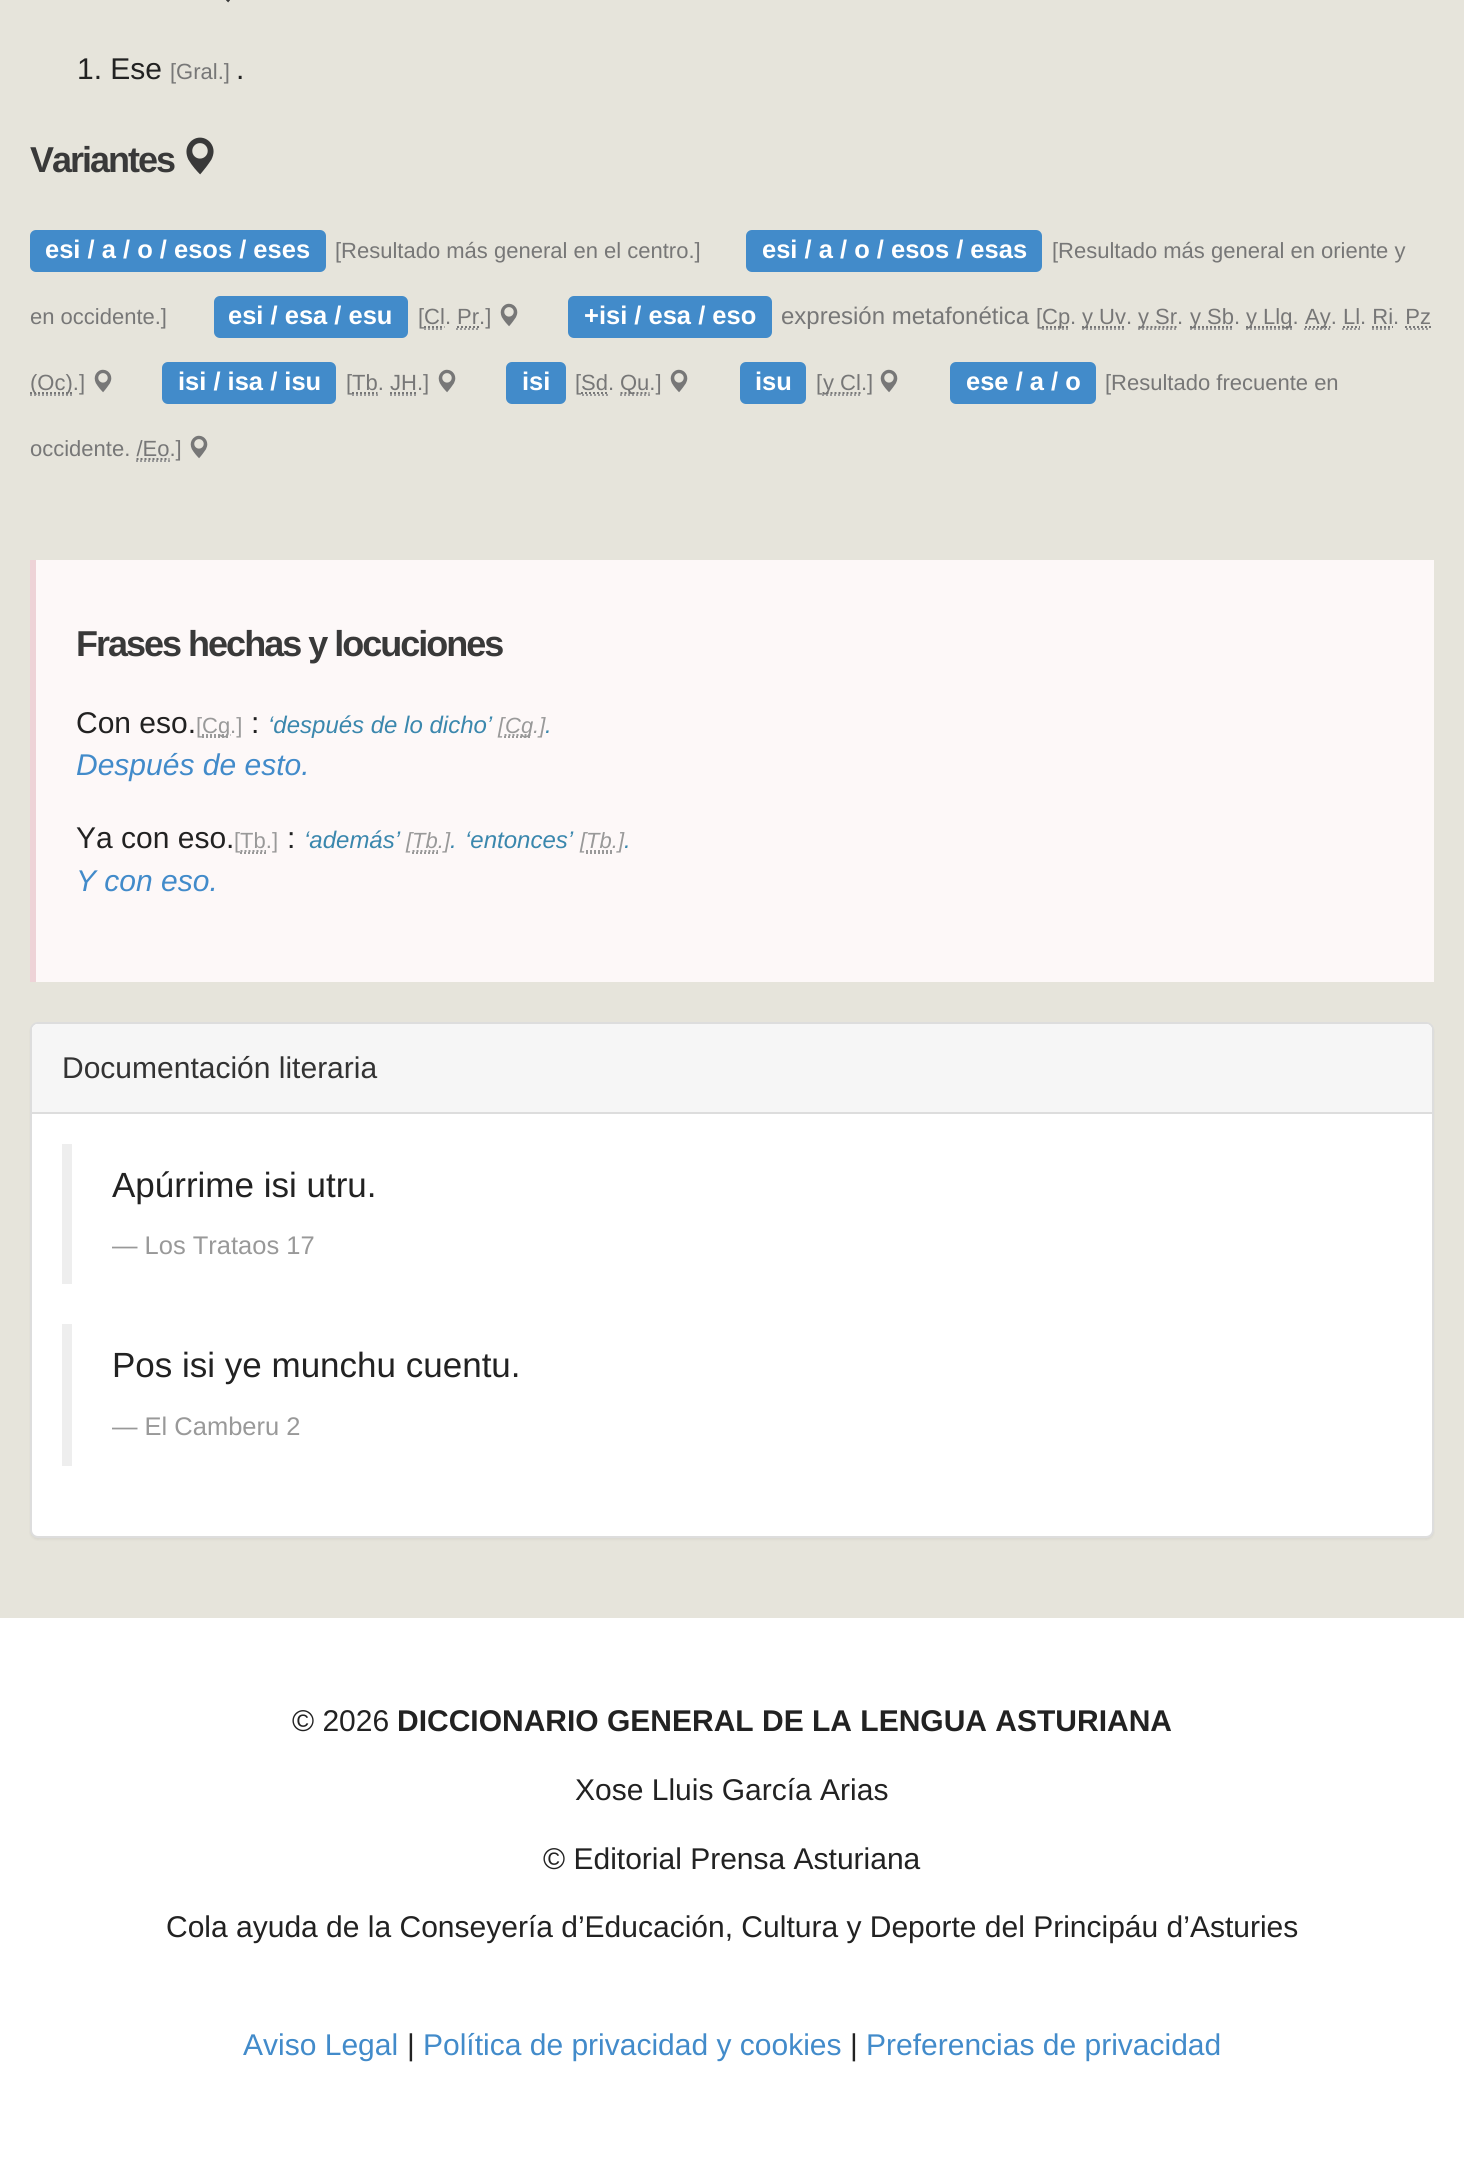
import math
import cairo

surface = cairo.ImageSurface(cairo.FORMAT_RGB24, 1464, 2169)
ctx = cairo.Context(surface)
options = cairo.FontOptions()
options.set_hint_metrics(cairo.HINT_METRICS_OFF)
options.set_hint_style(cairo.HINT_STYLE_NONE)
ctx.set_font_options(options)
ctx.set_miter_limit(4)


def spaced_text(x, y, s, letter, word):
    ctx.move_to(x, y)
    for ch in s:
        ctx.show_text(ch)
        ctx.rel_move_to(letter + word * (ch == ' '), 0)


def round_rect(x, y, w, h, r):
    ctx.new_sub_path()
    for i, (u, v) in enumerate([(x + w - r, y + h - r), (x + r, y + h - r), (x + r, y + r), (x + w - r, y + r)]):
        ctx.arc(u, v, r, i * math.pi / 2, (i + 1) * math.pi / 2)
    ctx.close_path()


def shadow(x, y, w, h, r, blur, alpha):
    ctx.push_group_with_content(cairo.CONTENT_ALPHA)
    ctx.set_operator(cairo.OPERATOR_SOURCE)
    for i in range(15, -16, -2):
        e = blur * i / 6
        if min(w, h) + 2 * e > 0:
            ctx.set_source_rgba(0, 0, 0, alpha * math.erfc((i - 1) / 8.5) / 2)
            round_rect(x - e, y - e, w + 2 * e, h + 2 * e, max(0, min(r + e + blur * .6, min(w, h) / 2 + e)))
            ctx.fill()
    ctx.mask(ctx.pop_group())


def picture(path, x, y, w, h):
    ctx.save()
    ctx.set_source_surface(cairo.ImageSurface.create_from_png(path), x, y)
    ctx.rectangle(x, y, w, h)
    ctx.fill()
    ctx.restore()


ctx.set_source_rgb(0.902, 0.894, 0.859)
ctx.paint()
picture("img1.png", 226, 0, 4, 3)
ctx.select_font_face("Liberation Sans")
ctx.set_font_size(30)
ctx.set_source_rgb(0.133, 0.133, 0.133)
ctx.move_to(77, 79)
ctx.show_text("1. Ese")
ctx.set_font_size(22)
ctx.set_source_rgb(0.467, 0.467, 0.467)
ctx.move_to(170, 79)
ctx.show_text("[Gral.]")
ctx.set_font_size(30)
ctx.set_source_rgb(0.133, 0.133, 0.133)
ctx.move_to(236, 79)
ctx.show_text(".")
ctx.select_font_face("Liberation Sans", cairo.FONT_SLANT_NORMAL, cairo.FONT_WEIGHT_BOLD)
ctx.set_font_size(36)
ctx.set_source_rgb(0.224, 0.224, 0.224)
spaced_text(30, 172, "Variantes", -2, 0)
picture("img2.png", 186, 137, 28, 38)
ctx.set_source_rgb(0.259, 0.545, 0.792)
round_rect(30, 230, 296, 42, 6)
ctx.fill()
ctx.set_font_size(25.5)
ctx.set_source_rgb(1, 1, 1)
ctx.move_to(45, 258)
ctx.show_text("esi / a / o / esos / eses")
ctx.select_font_face("Liberation Sans")
ctx.set_font_size(22)
ctx.set_source_rgb(0.467, 0.467, 0.467)
ctx.move_to(335, 258)
ctx.show_text("[Resultado más general en el centro.]")
ctx.set_source_rgb(0.259, 0.545, 0.792)
round_rect(746, 230, 296, 42, 6)
ctx.fill()
ctx.select_font_face("Liberation Sans", cairo.FONT_SLANT_NORMAL, cairo.FONT_WEIGHT_BOLD)
ctx.set_font_size(25.5)
ctx.set_source_rgb(1, 1, 1)
ctx.move_to(762, 258)
ctx.show_text("esi / a / o / esos / esas")
ctx.select_font_face("Liberation Sans")
ctx.set_font_size(22)
ctx.set_source_rgb(0.467, 0.467, 0.467)
ctx.move_to(1052, 258)
ctx.show_text("[Resultado más general en oriente y")
ctx.set_source_rgb(0.259, 0.545, 0.792)
round_rect(568, 296, 204, 42, 6)
ctx.fill()
ctx.select_font_face("Liberation Sans", cairo.FONT_SLANT_NORMAL, cairo.FONT_WEIGHT_BOLD)
ctx.set_font_size(25.5)
ctx.set_source_rgb(1, 1, 1)
ctx.move_to(584, 324)
ctx.show_text("+isi / esa / eso")
ctx.select_font_face("Liberation Sans")
ctx.set_font_size(24)
ctx.set_source_rgb(0.467, 0.467, 0.467)
ctx.move_to(781, 324)
ctx.show_text("expresión metafonética")
ctx.set_font_size(22)
ctx.move_to(1036, 324)
ctx.show_text("[")
ctx.new_path()
ctx.move_to(1042, 329)
ctx.line_to(1070, 329)
ctx.set_source_rgb(0.6, 0.6, 0.6)
ctx.set_dash([2, 2])
ctx.stroke()
ctx.new_path()
ctx.move_to(1042, 327)
ctx.line_to(1070, 327)
ctx.set_source_rgb(0.467, 0.467, 0.467)
ctx.stroke()
ctx.move_to(1042, 324)
ctx.show_text("Cp.")
ctx.new_path()
ctx.move_to(1082, 329)
ctx.line_to(1126, 329)
ctx.set_source_rgb(0.6, 0.6, 0.6)
ctx.stroke()
ctx.new_path()
ctx.move_to(1082, 327)
ctx.line_to(1126, 327)
ctx.set_source_rgb(0.467, 0.467, 0.467)
ctx.stroke()
ctx.move_to(1082, 324)
ctx.show_text("y Uv.")
ctx.new_path()
ctx.move_to(1138, 329)
ctx.line_to(1178, 329)
ctx.set_source_rgb(0.6, 0.6, 0.6)
ctx.stroke()
ctx.new_path()
ctx.move_to(1138.5, 327)
ctx.line_to(1177.5, 327)
ctx.set_source_rgb(0.467, 0.467, 0.467)
ctx.stroke()
ctx.move_to(1138, 324)
ctx.show_text("y Sr.")
ctx.new_path()
ctx.move_to(1190, 329)
ctx.line_to(1234, 329)
ctx.set_source_rgb(0.6, 0.6, 0.6)
ctx.stroke()
ctx.new_path()
ctx.move_to(1190, 327)
ctx.line_to(1234, 327)
ctx.set_source_rgb(0.467, 0.467, 0.467)
ctx.stroke()
ctx.move_to(1190, 324)
ctx.show_text("y Sb.")
ctx.new_path()
ctx.move_to(1246, 329)
ctx.line_to(1292, 329)
ctx.set_source_rgb(0.6, 0.6, 0.6)
ctx.stroke()
ctx.new_path()
ctx.move_to(1246, 327)
ctx.line_to(1292.5, 327)
ctx.set_source_rgb(0.467, 0.467, 0.467)
ctx.stroke()
ctx.move_to(1246, 324)
ctx.show_text("y Llg.")
ctx.new_path()
ctx.move_to(1304, 329)
ctx.line_to(1330, 329)
ctx.set_source_rgb(0.6, 0.6, 0.6)
ctx.stroke()
ctx.new_path()
ctx.move_to(1305, 327)
ctx.line_to(1330.5, 327)
ctx.set_source_rgb(0.467, 0.467, 0.467)
ctx.stroke()
ctx.move_to(1305, 324)
ctx.show_text("Ay. Ll. Ri. Pz")
ctx.new_path()
ctx.move_to(1343, 327)
ctx.line_to(1360, 327)
ctx.stroke()
ctx.new_path()
ctx.move_to(1372, 327)
ctx.line_to(1393, 327)
ctx.stroke()
ctx.new_path()
ctx.move_to(1342, 329)
ctx.line_to(1360, 329)
ctx.set_source_rgb(0.6, 0.6, 0.6)
ctx.stroke()
ctx.new_path()
ctx.move_to(1372, 329)
ctx.line_to(1392, 329)
ctx.stroke()
ctx.new_path()
ctx.move_to(30, 395)
ctx.line_to(72, 395)
ctx.stroke()
ctx.new_path()
ctx.move_to(30, 393)
ctx.line_to(73, 393)
ctx.set_source_rgb(0.467, 0.467, 0.467)
ctx.stroke()
ctx.move_to(30, 390)
ctx.show_text("(Oc).]")
ctx.new_path()
ctx.move_to(1406, 329)
ctx.line_to(1430, 329)
ctx.set_source_rgb(0.6, 0.6, 0.6)
ctx.stroke()
ctx.new_path()
ctx.move_to(1405, 327)
ctx.line_to(1431, 327)
ctx.set_source_rgb(0.467, 0.467, 0.467)
ctx.stroke()
picture("img3.png", 94, 369, 18, 24)
ctx.move_to(30, 324)
ctx.show_text("en occidente.]")
ctx.set_source_rgb(0.259, 0.545, 0.792)
round_rect(214, 296, 194, 42, 6)
ctx.fill()
ctx.select_font_face("Liberation Sans", cairo.FONT_SLANT_NORMAL, cairo.FONT_WEIGHT_BOLD)
ctx.set_font_size(25.5)
ctx.set_source_rgb(1, 1, 1)
ctx.move_to(228, 324)
ctx.show_text("esi / esa / esu")
ctx.select_font_face("Liberation Sans")
ctx.set_font_size(22)
ctx.set_source_rgb(0.467, 0.467, 0.467)
ctx.move_to(418, 324)
ctx.show_text("[Cl. Pr.]")
picture("img3.png", 500, 303, 18, 24)
ctx.new_path()
ctx.move_to(424, 327)
ctx.line_to(444.5, 327)
ctx.stroke()
ctx.new_path()
ctx.move_to(457, 327)
ctx.line_to(479, 327)
ctx.stroke()
ctx.new_path()
ctx.move_to(424, 329)
ctx.line_to(444, 329)
ctx.set_source_rgb(0.6, 0.6, 0.6)
ctx.stroke()
ctx.new_path()
ctx.move_to(456, 329)
ctx.line_to(478, 329)
ctx.stroke()
ctx.set_source_rgb(0.259, 0.545, 0.792)
round_rect(950, 362, 146, 42, 6)
ctx.fill()
ctx.select_font_face("Liberation Sans", cairo.FONT_SLANT_NORMAL, cairo.FONT_WEIGHT_BOLD)
ctx.set_font_size(25.5)
ctx.set_source_rgb(1, 1, 1)
ctx.move_to(966, 390)
ctx.show_text("ese / a / o")
ctx.select_font_face("Liberation Sans")
ctx.set_font_size(22)
ctx.set_source_rgb(0.467, 0.467, 0.467)
ctx.move_to(1105, 390)
ctx.show_text("[Resultado frecuente en")
ctx.move_to(30, 456)
ctx.show_text("occidente. /Eo.]")
picture("img3.png", 190, 435, 18, 24)
ctx.new_path()
ctx.move_to(136.5, 459)
ctx.line_to(169.5, 459)
ctx.stroke()
ctx.new_path()
ctx.move_to(136, 461)
ctx.line_to(170, 461)
ctx.set_source_rgb(0.6, 0.6, 0.6)
ctx.stroke()
ctx.set_source_rgb(0.259, 0.545, 0.792)
round_rect(162, 362, 174, 42, 6)
ctx.fill()
ctx.select_font_face("Liberation Sans", cairo.FONT_SLANT_NORMAL, cairo.FONT_WEIGHT_BOLD)
ctx.set_font_size(25.5)
ctx.set_source_rgb(1, 1, 1)
ctx.move_to(178, 390)
ctx.show_text("isi / isa / isu")
ctx.select_font_face("Liberation Sans")
ctx.set_font_size(22)
ctx.set_source_rgb(0.467, 0.467, 0.467)
ctx.move_to(346, 390)
ctx.show_text("[Tb. JH.]")
picture("img3.png", 438, 369, 18, 24)
ctx.new_path()
ctx.move_to(352, 393)
ctx.line_to(377.5, 393)
ctx.stroke()
ctx.new_path()
ctx.move_to(390, 393)
ctx.line_to(417, 393)
ctx.stroke()
ctx.new_path()
ctx.move_to(352, 395)
ctx.line_to(378, 395)
ctx.set_source_rgb(0.6, 0.6, 0.6)
ctx.stroke()
ctx.new_path()
ctx.move_to(390, 395)
ctx.line_to(416, 395)
ctx.stroke()
ctx.set_source_rgb(0.259, 0.545, 0.792)
round_rect(506, 362, 60, 42, 6)
ctx.fill()
ctx.select_font_face("Liberation Sans", cairo.FONT_SLANT_NORMAL, cairo.FONT_WEIGHT_BOLD)
ctx.set_font_size(25.5)
ctx.set_source_rgb(1, 1, 1)
ctx.move_to(522, 390)
ctx.show_text("isi")
ctx.select_font_face("Liberation Sans")
ctx.set_font_size(22)
ctx.set_source_rgb(0.467, 0.467, 0.467)
ctx.move_to(575, 390)
ctx.show_text("[Sd.")
ctx.new_path()
ctx.move_to(620, 395)
ctx.line_to(650, 395)
ctx.set_source_rgb(0.6, 0.6, 0.6)
ctx.stroke()
ctx.new_path()
ctx.move_to(620.5, 393)
ctx.line_to(649.5, 393)
ctx.set_source_rgb(0.467, 0.467, 0.467)
ctx.stroke()
ctx.move_to(620, 390)
ctx.show_text("Qu.]")
picture("img3.png", 670, 369, 18, 24)
ctx.new_path()
ctx.move_to(581, 393)
ctx.line_to(608, 393)
ctx.stroke()
ctx.new_path()
ctx.move_to(582, 395)
ctx.line_to(608, 395)
ctx.set_source_rgb(0.6, 0.6, 0.6)
ctx.stroke()
ctx.set_source_rgb(0.259, 0.545, 0.792)
round_rect(740, 362, 66, 42, 6)
ctx.fill()
ctx.select_font_face("Liberation Sans", cairo.FONT_SLANT_NORMAL, cairo.FONT_WEIGHT_BOLD)
ctx.set_font_size(25.5)
ctx.set_source_rgb(1, 1, 1)
ctx.move_to(755, 390)
ctx.show_text("isu")
ctx.select_font_face("Liberation Sans")
ctx.set_font_size(22)
ctx.set_source_rgb(0.467, 0.467, 0.467)
ctx.move_to(816, 390)
ctx.show_text("[")
ctx.new_path()
ctx.move_to(822, 395)
ctx.line_to(860, 395)
ctx.set_source_rgb(0.6, 0.6, 0.6)
ctx.stroke()
ctx.new_path()
ctx.move_to(822.5, 393)
ctx.line_to(860.5, 393)
ctx.set_source_rgb(0.467, 0.467, 0.467)
ctx.stroke()
ctx.move_to(823, 390)
ctx.show_text("y Cl.]")
picture("img3.png", 880, 369, 18, 24)
ctx.set_source_rgb(0.992, 0.969, 0.969)
ctx.rectangle(36, 560, 1398, 422)
ctx.fill()
ctx.set_source_rgb(0.933, 0.827, 0.843)
ctx.rectangle(30, 560, 6, 422)
ctx.fill()
ctx.select_font_face("Liberation Sans", cairo.FONT_SLANT_NORMAL, cairo.FONT_WEIGHT_BOLD)
ctx.set_font_size(36)
ctx.set_source_rgb(0.224, 0.224, 0.224)
spaced_text(76, 656, "Frases hechas y locuciones", -2, 0)
ctx.select_font_face("Liberation Sans")
ctx.set_font_size(30)
ctx.set_source_rgb(0.133, 0.133, 0.133)
ctx.move_to(76, 733)
ctx.show_text("Con eso.")
ctx.set_font_size(22)
ctx.set_source_rgb(0.6, 0.6, 0.6)
ctx.move_to(196, 733)
ctx.show_text("[")
ctx.new_path()
ctx.move_to(202, 737)
ctx.line_to(230, 737)
ctx.move_to(202, 735)
ctx.line_to(230.5, 735)
ctx.stroke()
ctx.move_to(202, 733)
ctx.show_text("Cg.]")
ctx.set_font_size(30)
ctx.set_source_rgb(0.133, 0.133, 0.133)
ctx.move_to(251, 733)
ctx.show_text(":")
ctx.select_font_face("Liberation Sans", cairo.FONT_SLANT_ITALIC)
ctx.set_font_size(24)
ctx.set_source_rgb(0.227, 0.529, 0.678)
ctx.move_to(268, 733)
ctx.show_text("‘después de lo dicho’")
ctx.set_font_size(22)
ctx.set_source_rgb(0.6, 0.6, 0.6)
ctx.move_to(498, 733)
ctx.show_text("[")
ctx.new_path()
ctx.move_to(504, 737)
ctx.line_to(532, 737)
ctx.move_to(504.5, 735)
ctx.line_to(532.5, 735)
ctx.stroke()
ctx.move_to(505, 733)
ctx.show_text("Cg.]")
ctx.set_font_size(24)
ctx.set_source_rgb(0.227, 0.529, 0.678)
ctx.move_to(545, 733)
ctx.show_text(".")
ctx.set_font_size(30)
ctx.set_source_rgb(0.259, 0.545, 0.792)
ctx.move_to(76, 775)
ctx.show_text("Después de esto.")
ctx.select_font_face("Liberation Sans")
ctx.set_source_rgb(0.133, 0.133, 0.133)
ctx.move_to(76, 848)
ctx.show_text("Ya con eso.")
ctx.set_font_size(22)
ctx.set_source_rgb(0.6, 0.6, 0.6)
ctx.move_to(234, 848)
ctx.show_text("[Tb.]")
ctx.new_path()
ctx.move_to(240, 853)
ctx.line_to(266, 853)
ctx.move_to(240.5, 851)
ctx.line_to(266, 851)
ctx.stroke()
ctx.set_font_size(30)
ctx.set_source_rgb(0.133, 0.133, 0.133)
ctx.move_to(287, 848)
ctx.show_text(":")
ctx.select_font_face("Liberation Sans", cairo.FONT_SLANT_ITALIC)
ctx.set_font_size(24)
ctx.set_source_rgb(0.227, 0.529, 0.678)
ctx.move_to(304, 848)
ctx.show_text("‘además’")
ctx.set_font_size(22)
ctx.set_source_rgb(0.6, 0.6, 0.6)
ctx.move_to(406, 848)
ctx.show_text("[Tb.]")
ctx.new_path()
ctx.move_to(412, 853)
ctx.line_to(438, 853)
ctx.move_to(412.5, 851)
ctx.line_to(438, 851)
ctx.stroke()
ctx.set_font_size(24)
ctx.set_source_rgb(0.227, 0.529, 0.678)
ctx.move_to(450, 848)
ctx.show_text(".")
ctx.move_to(465, 848)
ctx.show_text("‘entonces’")
ctx.set_font_size(22)
ctx.set_source_rgb(0.6, 0.6, 0.6)
ctx.move_to(580, 848)
ctx.show_text("[Tb.]")
ctx.new_path()
ctx.move_to(586, 853)
ctx.line_to(612, 853)
ctx.move_to(586, 851)
ctx.line_to(612, 851)
ctx.stroke()
ctx.set_font_size(24)
ctx.set_source_rgb(0.227, 0.529, 0.678)
ctx.move_to(624, 848)
ctx.show_text(".")
ctx.set_font_size(30)
ctx.set_source_rgb(0.259, 0.545, 0.792)
ctx.move_to(76, 891)
ctx.show_text("Y con eso.")
ctx.set_source_rgb(0, 0, 0)
shadow(30, 1024, 1404, 516, 8, 1, 0.05)
ctx.set_source_rgb(1, 1, 1)
round_rect(31, 1023, 1402, 514, 7)
ctx.fill_preserve()
ctx.set_source_rgb(0.867, 0.867, 0.867)
ctx.set_dash([])
ctx.stroke()
ctx.set_source_rgb(0.961, 0.961, 0.961)
ctx.new_path()
ctx.move_to(38, 1024)
ctx.line_to(1426, 1024)
ctx.curve_to(1429.5, 1024, 1432, 1026.5, 1432, 1030)
ctx.line_to(1432, 1114)
ctx.line_to(32, 1114)
ctx.line_to(32, 1030)
ctx.curve_to(32, 1026.5, 34.5, 1024, 38, 1024)
ctx.close_path()
ctx.fill()
ctx.set_source_rgb(0.867, 0.867, 0.867)
ctx.rectangle(32, 1112, 1400, 2)
ctx.fill()
ctx.select_font_face("Liberation Sans")
ctx.set_source_rgb(0.2, 0.2, 0.2)
ctx.move_to(62, 1078)
ctx.show_text("Documentación literaria")
ctx.set_source_rgb(0.933, 0.933, 0.933)
ctx.rectangle(62, 1144, 10, 140)
ctx.fill()
ctx.set_font_size(35)
ctx.set_source_rgb(0.133, 0.133, 0.133)
ctx.move_to(112, 1197)
ctx.show_text("Apúrrime isi utru.")
ctx.set_font_size(25.5)
ctx.set_source_rgb(0.6, 0.6, 0.6)
ctx.move_to(112, 1254)
ctx.show_text("— Los Trataos 17")
ctx.set_source_rgb(0.933, 0.933, 0.933)
ctx.rectangle(62, 1324, 10, 142)
ctx.fill()
ctx.set_font_size(35)
ctx.set_source_rgb(0.133, 0.133, 0.133)
ctx.move_to(112, 1377)
ctx.show_text("Pos isi ye munchu cuentu.")
ctx.set_font_size(25.5)
ctx.set_source_rgb(0.6, 0.6, 0.6)
ctx.move_to(112, 1435)
ctx.show_text("— El Camberu 2")
ctx.set_source_rgb(1, 1, 1)
ctx.rectangle(0, 1618, 1464, 551)
ctx.fill()
ctx.set_font_size(30)
ctx.set_source_rgb(0.133, 0.133, 0.133)
ctx.move_to(292, 1731)
ctx.show_text("© 2026")
ctx.select_font_face("Liberation Sans", cairo.FONT_SLANT_NORMAL, cairo.FONT_WEIGHT_BOLD)
ctx.move_to(397, 1731)
ctx.show_text("DICCIONARIO GENERAL DE LA LENGUA ASTURIANA")
ctx.select_font_face("Liberation Sans")
ctx.move_to(575, 1800)
ctx.show_text("Xose Lluis García Arias")
ctx.move_to(543, 1869)
ctx.show_text("© Editorial Prensa Asturiana")
ctx.move_to(166, 1937)
ctx.show_text("Cola ayuda de la Conseyería d’Educación, Cultura y Deporte del Principáu d’Asturies")
ctx.set_source_rgb(0.259, 0.545, 0.792)
ctx.move_to(243, 2055)
ctx.show_text("Aviso Legal")
ctx.set_source_rgb(0.133, 0.133, 0.133)
ctx.move_to(407, 2055)
ctx.show_text("|")
ctx.set_source_rgb(0.259, 0.545, 0.792)
ctx.move_to(423, 2055)
ctx.show_text("Política de privacidad y cookies")
ctx.set_source_rgb(0.133, 0.133, 0.133)
ctx.move_to(850, 2055)
ctx.show_text("|")
ctx.set_source_rgb(0.259, 0.545, 0.792)
ctx.move_to(866, 2055)
ctx.show_text("Preferencias de privacidad")
surface.write_to_png("page.png")
